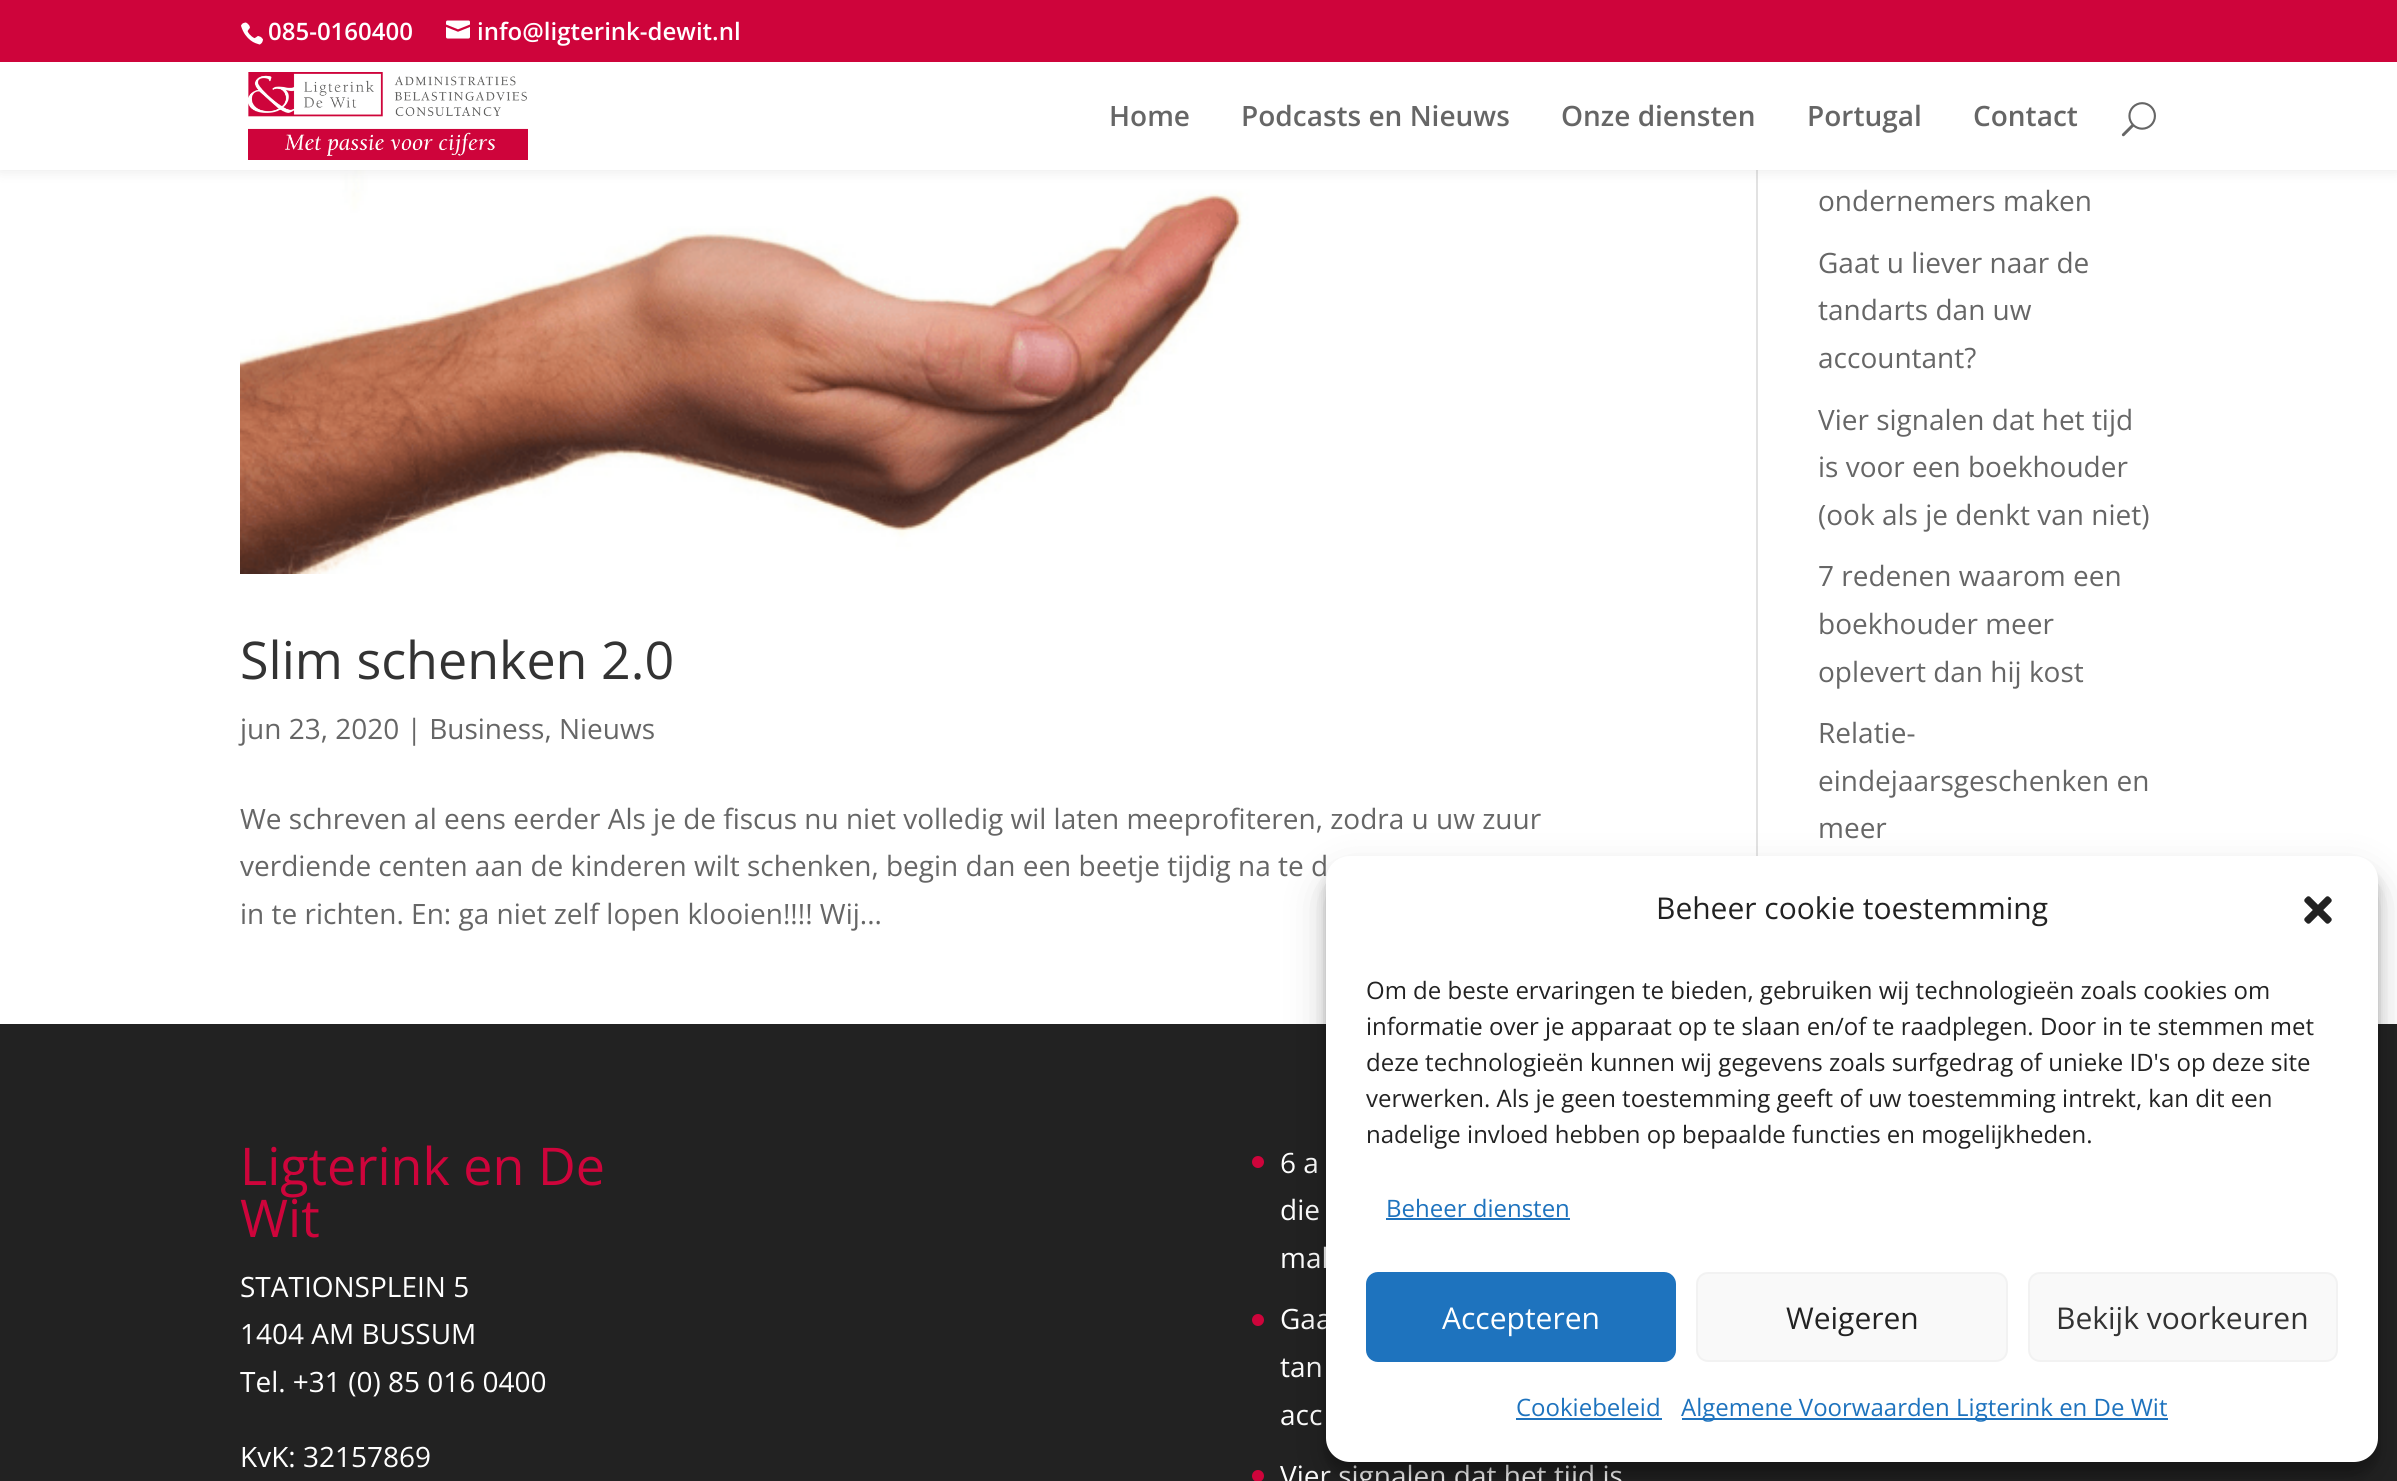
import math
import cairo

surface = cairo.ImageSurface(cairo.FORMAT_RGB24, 2397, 1481)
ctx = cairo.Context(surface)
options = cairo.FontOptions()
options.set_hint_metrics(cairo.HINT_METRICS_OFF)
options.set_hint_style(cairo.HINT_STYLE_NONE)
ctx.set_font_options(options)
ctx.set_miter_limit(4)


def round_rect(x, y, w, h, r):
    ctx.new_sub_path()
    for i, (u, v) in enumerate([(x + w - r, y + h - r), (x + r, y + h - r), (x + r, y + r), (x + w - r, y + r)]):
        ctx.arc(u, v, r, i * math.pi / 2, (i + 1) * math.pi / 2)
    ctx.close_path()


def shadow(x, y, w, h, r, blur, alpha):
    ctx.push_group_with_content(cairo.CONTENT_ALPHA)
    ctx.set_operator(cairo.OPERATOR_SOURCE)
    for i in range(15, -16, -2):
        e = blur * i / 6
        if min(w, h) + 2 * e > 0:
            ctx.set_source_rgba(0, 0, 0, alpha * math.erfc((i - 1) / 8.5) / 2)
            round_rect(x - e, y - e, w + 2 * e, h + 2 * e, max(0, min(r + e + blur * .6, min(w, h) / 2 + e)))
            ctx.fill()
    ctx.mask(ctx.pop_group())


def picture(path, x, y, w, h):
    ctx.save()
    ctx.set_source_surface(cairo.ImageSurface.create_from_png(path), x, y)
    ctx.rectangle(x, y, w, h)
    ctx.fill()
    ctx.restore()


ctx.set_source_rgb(1, 1, 1)
ctx.paint()
ctx.set_source_rgb(0.886, 0.886, 0.886)
ctx.rectangle(1756, 170, 2, 686)
ctx.fill()
picture("img5.png", 240, 170, 1412, 404)
ctx.set_source_rgb(0, 0, 0)
shadow(0, 62, 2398, 108, 0, 7, 0.1)
ctx.set_source_rgb(0.808, 0.016, 0.231)
ctx.rectangle(0, 0, 2397, 62)
ctx.fill()
picture("img1.png", 241, 22, 22, 23)
ctx.select_font_face("Open Sans SemiBold")
ctx.set_font_size(24)
ctx.set_source_rgb(1, 1, 1)
ctx.move_to(268, 40)
ctx.show_text("085-0160400")
picture("img2.png", 446, 20, 24, 19)
ctx.move_to(477, 40)
ctx.show_text("info@ligterink-dewit.nl")
ctx.rectangle(0, 62, 2397, 108)
ctx.fill()
picture("img3.png", 248, 72, 280, 88)
ctx.set_font_size(28)
ctx.set_source_rgb(0.4, 0.4, 0.4)
ctx.move_to(1109, 126)
ctx.show_text("Home")
ctx.move_to(1241, 126)
ctx.show_text("Podcasts en Nieuws")
ctx.move_to(1561, 126)
ctx.show_text("Onze diensten")
ctx.move_to(1807, 126)
ctx.show_text("Portugal")
ctx.move_to(1973, 126)
ctx.show_text("Contact")
picture("img4.png", 2121, 102, 35, 35)
ctx.select_font_face("Open Sans")
ctx.set_font_size(52)
ctx.set_source_rgb(0.2, 0.2, 0.2)
ctx.move_to(240, 679)
ctx.show_text("Slim schenken 2.0")
ctx.set_font_size(28)
ctx.set_source_rgb(0.4, 0.4, 0.4)
ctx.move_to(240, 739)
ctx.show_text("jun 23, 2020 | Business, Nieuws")
ctx.move_to(240, 829)
ctx.show_text("We schreven al eens eerder Als je de fiscus nu niet volledig wil laten meeprofiteren, zodra u uw zuur")
ctx.move_to(240, 876)
ctx.show_text("verdiende centen aan de kinderen wilt schenken, begin dan een beetje tijdig na te d")
ctx.move_to(240, 924)
ctx.show_text("in te richten. En: ga niet zelf lopen klooien!!!! Wij...")
ctx.move_to(1818, 211)
ctx.show_text("ondernemers maken")
ctx.move_to(1818, 273)
ctx.show_text("Gaat u liever naar de")
ctx.move_to(1818, 320)
ctx.show_text("tandarts dan uw")
ctx.move_to(1818, 368)
ctx.show_text("accountant?")
ctx.move_to(1818, 430)
ctx.show_text("Vier signalen dat het tijd")
ctx.move_to(1818, 477)
ctx.show_text("is voor een boekhouder")
ctx.move_to(1818, 525)
ctx.show_text("(ook als je denkt van niet)")
ctx.move_to(1818, 586)
ctx.show_text("7 redenen waarom een")
ctx.move_to(1818, 634)
ctx.show_text("boekhouder meer")
ctx.move_to(1818, 682)
ctx.show_text("oplevert dan hij kost")
ctx.move_to(1818, 743)
ctx.show_text("Relatie-")
ctx.move_to(1818, 791)
ctx.show_text("eindejaarsgeschenken en")
ctx.move_to(1818, 838)
ctx.show_text("meer")
ctx.set_source_rgb(0.133, 0.133, 0.133)
ctx.rectangle(0, 1024, 2397, 457)
ctx.fill()
ctx.set_font_size(52)
ctx.set_source_rgb(0.808, 0.016, 0.231)
ctx.move_to(240, 1185)
ctx.show_text("Ligterink en De")
ctx.move_to(240, 1237)
ctx.show_text("Wit")
ctx.set_font_size(28)
ctx.set_source_rgb(1, 1, 1)
ctx.move_to(240, 1297)
ctx.show_text("STATIONSPLEIN 5")
ctx.move_to(240, 1344)
ctx.show_text("1404 AM BUSSUM")
ctx.move_to(240, 1392)
ctx.show_text("Tel. +31 (0) 85 016 0400")
ctx.move_to(240, 1467)
ctx.show_text("KvK: 32157869")
ctx.set_source_rgb(0.808, 0.016, 0.231)
ctx.new_path()
ctx.arc(1258, 1162, 6, 0, 2 * math.pi)
ctx.fill()
ctx.set_source_rgb(1, 1, 1)
ctx.move_to(1280, 1173)
ctx.show_text("6 a")
ctx.move_to(1280, 1220)
ctx.show_text("die")
ctx.move_to(1280, 1268)
ctx.show_text("mak")
ctx.set_source_rgb(0.808, 0.016, 0.231)
ctx.new_path()
ctx.arc(1258, 1320, 6, 0, 2 * math.pi)
ctx.fill()
ctx.set_source_rgb(1, 1, 1)
ctx.move_to(1280, 1329)
ctx.show_text("Gaa")
ctx.move_to(1280, 1377)
ctx.show_text("tan")
ctx.move_to(1280, 1425)
ctx.show_text("acc")
ctx.set_source_rgb(0.808, 0.016, 0.231)
ctx.new_path()
ctx.arc(1258, 1476, 6, 0, 2 * math.pi)
ctx.fill()
ctx.set_source_rgb(1, 1, 1)
ctx.move_to(1280, 1486)
ctx.show_text("Vier signalen dat het tijd is")
ctx.set_source_rgb(0, 0, 0)
shadow(1326, 868, 1052, 606, 24, 6, 0.23)
shadow(1326, 876, 1052, 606, 24, 20, 0.19)
ctx.set_source_rgb(1, 1, 1)
round_rect(1326, 856, 1052, 606, 24)
ctx.fill()
ctx.set_font_size(30)
ctx.set_source_rgb(0.133, 0.133, 0.133)
ctx.move_to(1656, 919)
ctx.show_text("Beheer cookie toestemming")
picture("img6.png", 2304, 896, 28, 28)
ctx.set_font_size(24)
ctx.move_to(1366, 999)
ctx.show_text("Om de beste ervaringen te bieden, gebruiken wij technologieën zoals cookies om")
ctx.move_to(1366, 1035)
ctx.show_text("informatie over je apparaat op te slaan en/of te raadplegen. Door in te stemmen met")
ctx.move_to(1366, 1071)
ctx.show_text("deze technologieën kunnen wij gegevens zoals surfgedrag of unieke ID's op deze site")
ctx.move_to(1366, 1107)
ctx.show_text("verwerken. Als je geen toestemming geeft of uw toestemming intrekt, kan dit een")
ctx.move_to(1366, 1143)
ctx.show_text("nadelige invloed hebben op bepaalde functies en mogelijkheden.")
ctx.set_source_rgb(0.118, 0.451, 0.745)
ctx.move_to(1386, 1217)
ctx.show_text("Beheer diensten")
ctx.rectangle(1386, 1218, 184, 2)
ctx.fill()
round_rect(1367, 1273, 308, 88, 11)
ctx.fill_preserve()
ctx.stroke()
ctx.set_font_size(30)
ctx.set_source_rgb(1, 1, 1)
ctx.move_to(1442, 1329)
ctx.show_text("Accepteren")
ctx.set_source_rgb(0.976, 0.976, 0.976)
round_rect(1697, 1273, 310, 88, 11)
ctx.fill_preserve()
ctx.set_source_rgb(0.949, 0.949, 0.949)
ctx.stroke()
ctx.set_source_rgb(0.133, 0.133, 0.133)
ctx.move_to(1786, 1329)
ctx.show_text("Weigeren")
ctx.set_source_rgb(0.976, 0.976, 0.976)
round_rect(2029, 1273, 308, 88, 11)
ctx.fill_preserve()
ctx.set_source_rgb(0.949, 0.949, 0.949)
ctx.stroke()
ctx.set_source_rgb(0.2, 0.2, 0.2)
ctx.move_to(2056, 1329)
ctx.show_text("Bekijk voorkeuren")
ctx.set_font_size(24)
ctx.set_source_rgb(0.118, 0.451, 0.745)
ctx.move_to(1516, 1416)
ctx.show_text("Cookiebeleid")
ctx.rectangle(1516, 1418, 146, 2)
ctx.fill()
ctx.rectangle(1682, 1418, 486, 2)
ctx.fill()
ctx.move_to(1681, 1416)
ctx.show_text("Algemene Voorwaarden Ligterink en De Wit")
surface.write_to_png("page.png")
